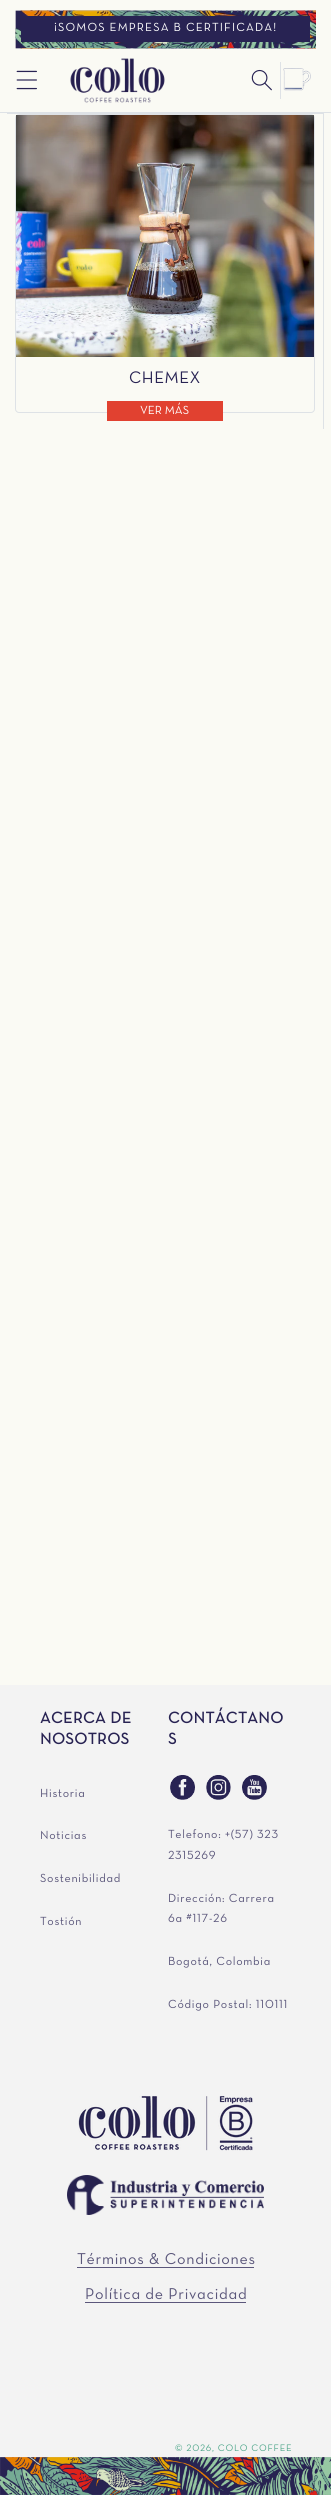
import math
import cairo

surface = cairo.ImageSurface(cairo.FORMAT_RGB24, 331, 2495)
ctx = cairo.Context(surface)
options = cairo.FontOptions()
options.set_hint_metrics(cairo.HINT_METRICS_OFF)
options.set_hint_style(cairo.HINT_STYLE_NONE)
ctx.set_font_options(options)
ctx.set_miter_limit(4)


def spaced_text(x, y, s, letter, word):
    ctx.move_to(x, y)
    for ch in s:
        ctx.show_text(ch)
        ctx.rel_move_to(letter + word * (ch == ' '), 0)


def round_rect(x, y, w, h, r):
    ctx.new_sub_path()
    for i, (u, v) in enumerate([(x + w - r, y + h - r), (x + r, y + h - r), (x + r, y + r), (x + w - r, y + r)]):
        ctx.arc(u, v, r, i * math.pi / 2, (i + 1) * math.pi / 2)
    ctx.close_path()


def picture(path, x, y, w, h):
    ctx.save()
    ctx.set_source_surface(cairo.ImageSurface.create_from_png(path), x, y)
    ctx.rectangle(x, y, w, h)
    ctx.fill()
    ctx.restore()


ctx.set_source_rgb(0.98, 0.98, 0.957)
ctx.paint()
picture("img1.png", 15, 10, 301, 39)
ctx.set_source_rgba(1, 1, 1, 0.08)
ctx.rectangle(15, 48, 301, 1)
ctx.fill()
ctx.set_source_rgb(0.157, 0.137, 0.325)
ctx.rectangle(21, 16, 289, 26)
ctx.fill()
ctx.select_font_face("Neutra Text")
ctx.set_font_size(12)
ctx.set_source_rgb(1, 1, 1)
spaced_text(54, 31, "¡SOMOS EMPRESA B CERTIFICADA!", 1.1, 0)
ctx.set_source_rgb(0.871, 0.886, 0.902)
ctx.rectangle(0, 112, 331, 1)
ctx.fill()
picture("img2.png", 16, 70, 21, 20)
picture("img3.png", 70, 58, 95, 45)
ctx.rectangle(280, 62, 1, 37)
ctx.fill()
picture("img4.png", 251, 69, 21, 22)
picture("img5.png", 283, 68, 28, 23)
ctx.rectangle(7, 113, 317, 1)
ctx.fill()
ctx.rectangle(323, 113, 1, 316)
ctx.fill()
round_rect(15.5, 114.5, 299, 298, 3.5)
ctx.set_line_width(1)
ctx.stroke()
picture("img6.png", 16, 115, 298, 242)
ctx.set_font_size(17)
ctx.set_source_rgb(0.157, 0.137, 0.325)
spaced_text(129, 383, "CHEMEX", 0.5, 0)
ctx.set_source_rgb(0.882, 0.255, 0.188)
ctx.rectangle(107, 401, 116, 20)
ctx.fill()
ctx.set_font_size(12)
ctx.set_source_rgb(1, 1, 1)
ctx.move_to(140, 414)
ctx.show_text("VER MÁS")
ctx.set_source_rgb(0.953, 0.953, 0.953)
ctx.rectangle(0, 1685, 331, 810)
ctx.fill()
ctx.select_font_face("Neutra Text", cairo.FONT_SLANT_NORMAL, cairo.FONT_WEIGHT_BOLD)
ctx.set_font_size(16)
ctx.set_source_rgb(0.157, 0.137, 0.325)
spaced_text(40, 1723, "ACERCA DE", 0.5, 0)
spaced_text(40, 1744, "NOSOTROS", 0.5, 0)
ctx.select_font_face("Neutra Text")
ctx.set_font_size(12)
ctx.set_source_rgb(0.357, 0.341, 0.482)
spaced_text(40, 1797, "Historia", 0.7, 0)
spaced_text(40, 1839, "Noticias", 0.7, 0)
spaced_text(40, 1882, "Sostenibilidad", 0.7, 0)
spaced_text(40, 1925, "Tostión", 0.7, 0)
ctx.select_font_face("Neutra Text", cairo.FONT_SLANT_NORMAL, cairo.FONT_WEIGHT_BOLD)
ctx.set_font_size(16)
ctx.set_source_rgb(0.157, 0.137, 0.325)
spaced_text(168, 1723, "CONTÁCTANO", 0.5, 0)
spaced_text(168, 1744, "S", 0.5, 0)
picture("img7.png", 170, 1775, 25, 25)
picture("img8.png", 206, 1775, 25, 25)
picture("img9.png", 242, 1775, 25, 25)
ctx.select_font_face("Neutra Text")
ctx.set_font_size(12)
ctx.set_source_rgb(0.357, 0.341, 0.482)
spaced_text(168, 1838, "Telefono: +(57) 323", 0.7, 0)
spaced_text(168, 1859, "2315269", 0.7, 0)
spaced_text(168, 1902, "Dirección: Carrera", 0.7, 0)
spaced_text(168, 1922, "6a #117-26", 0.7, 0)
spaced_text(168, 1965, "Bogotá, Colombia", 0.7, 0)
spaced_text(168, 2008, "Código Postal: 110111", 0.7, 0)
picture("img10.png", 78, 2096, 175, 55)
picture("img11.png", 67, 2175, 197, 40)
ctx.set_font_size(16)
spaced_text(77, 2264, "Términos & Condiciones", 0.7, 0)
ctx.rectangle(77, 2267, 177, 1)
ctx.fill()
spaced_text(85, 2299, "Política de Privacidad", 0.7, 0)
ctx.rectangle(85, 2302, 161, 1)
ctx.fill()
ctx.set_font_size(9.6)
ctx.set_source_rgb(0.314, 0.655, 0.545)
spaced_text(175, 2451, "© 2026, COLO COFFEE", 0.75, 0)
picture("img12.png", 0, 2457, 331, 38)
surface.write_to_png("page.png")
